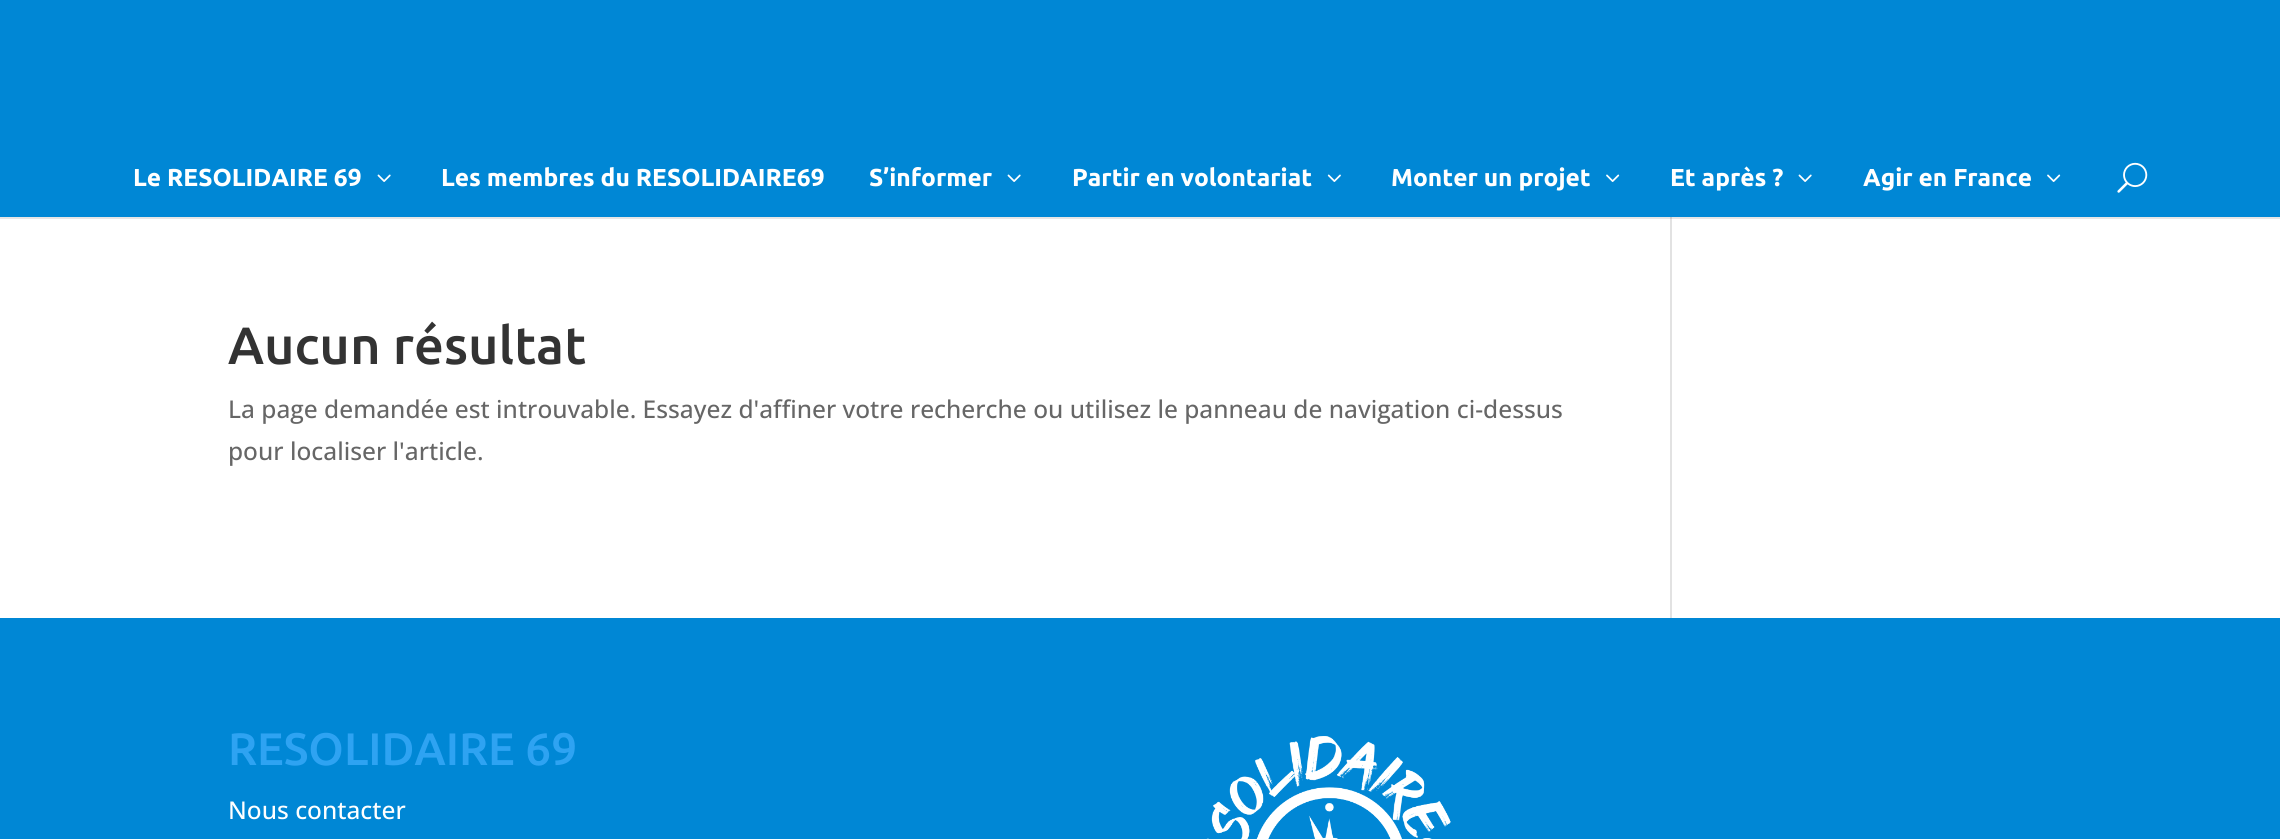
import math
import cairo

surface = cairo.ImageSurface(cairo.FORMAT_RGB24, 2280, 839)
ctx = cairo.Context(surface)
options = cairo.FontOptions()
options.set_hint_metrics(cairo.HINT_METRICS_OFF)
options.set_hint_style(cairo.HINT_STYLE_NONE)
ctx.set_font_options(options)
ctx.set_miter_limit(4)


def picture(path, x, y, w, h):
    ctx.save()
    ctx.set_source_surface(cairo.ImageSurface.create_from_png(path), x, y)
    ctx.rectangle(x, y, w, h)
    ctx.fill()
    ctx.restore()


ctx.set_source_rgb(1, 1, 1)
ctx.paint()
ctx.set_source_rgb(0.902, 0.902, 0.902)
ctx.rectangle(0, 217, 2280, 2)
ctx.fill()
ctx.set_source_rgb(0, 0.529, 0.835)
ctx.rectangle(0, 0, 2280, 217)
ctx.fill()
ctx.select_font_face("Ubuntu", cairo.FONT_SLANT_NORMAL, cairo.FONT_WEIGHT_BOLD)
ctx.set_font_size(24.5)
ctx.set_source_rgb(1, 1, 1)
ctx.move_to(133, 186)
ctx.show_text("Le RESOLIDAIRE 69")
picture("img1.png", 377, 174, 14, 8)
ctx.move_to(441, 186)
ctx.show_text("Les membres du RESOLIDAIRE69")
ctx.move_to(869, 186)
ctx.show_text("S’informer")
picture("img1.png", 1007, 174, 14, 8)
ctx.move_to(1072, 186)
ctx.show_text("Partir en volontariat")
picture("img2.png", 1327, 174, 14, 8)
ctx.move_to(1391, 186)
ctx.show_text("Monter un projet")
picture("img3.png", 1606, 174, 14, 8)
ctx.move_to(1670, 186)
ctx.show_text("Et après ?")
picture("img1.png", 1798, 174, 14, 8)
ctx.move_to(1863, 186)
ctx.show_text("Agir en France")
picture("img3.png", 2047, 174, 14, 8)
picture("img4.png", 2117, 162, 31, 31)
ctx.select_font_face("Ubuntu Medium")
ctx.set_font_size(52.5)
ctx.set_source_rgb(0.2, 0.2, 0.2)
ctx.move_to(228, 364)
ctx.show_text("Aucun résultat")
ctx.select_font_face("Open Sans Medium")
ctx.set_font_size(24.5)
ctx.set_source_rgb(0.4, 0.4, 0.4)
ctx.move_to(228, 418)
ctx.show_text("La page demandée est introuvable. Essayez d'affiner votre recherche ou utilisez le panneau de navigation ci-dessus")
ctx.move_to(228, 460)
ctx.show_text("pour localiser l'article.")
ctx.set_source_rgb(0.886, 0.886, 0.886)
ctx.rectangle(1670, 217, 2, 401)
ctx.fill()
ctx.set_source_rgb(0.796, 0.796, 0.796)
ctx.rectangle(1670, 217, 2, 2)
ctx.fill()
ctx.set_source_rgb(0, 0.529, 0.835)
ctx.rectangle(0, 618, 2280, 221)
ctx.fill()
ctx.select_font_face("Ubuntu Medium")
ctx.set_font_size(45.5)
ctx.set_source_rgb(0.18, 0.639, 0.949)
ctx.move_to(228, 765)
ctx.show_text("RESOLIDAIRE 69")
ctx.select_font_face("Open Sans Medium")
ctx.set_font_size(24.5)
ctx.set_source_rgb(1, 1, 1)
ctx.move_to(228, 819)
ctx.show_text("Nous contacter")
picture("img5.png", 1206, 736, 245, 103)
surface.write_to_png("page.png")
